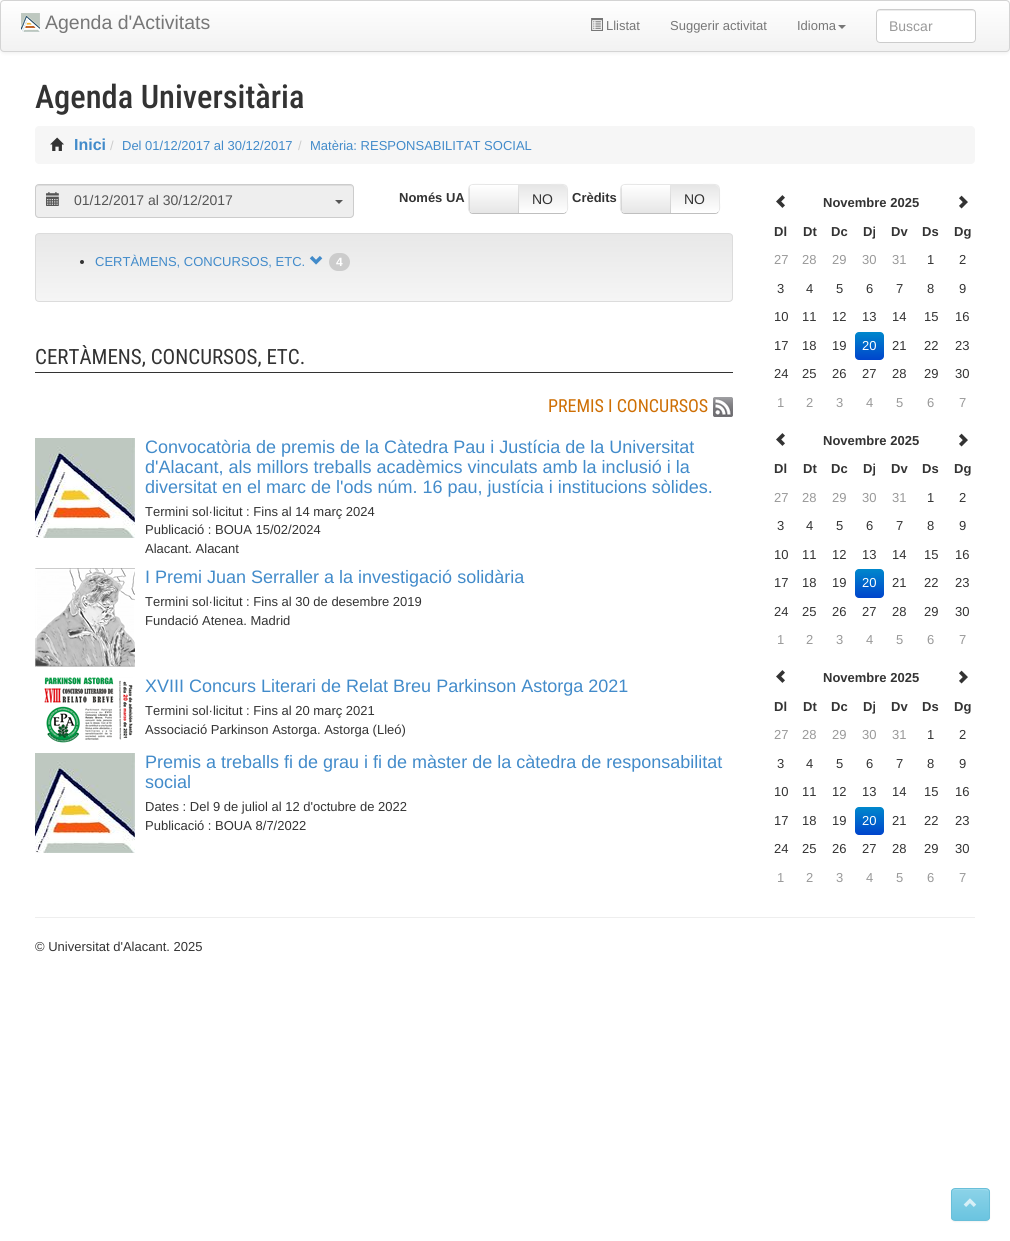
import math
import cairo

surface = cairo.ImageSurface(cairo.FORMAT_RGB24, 1010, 1241)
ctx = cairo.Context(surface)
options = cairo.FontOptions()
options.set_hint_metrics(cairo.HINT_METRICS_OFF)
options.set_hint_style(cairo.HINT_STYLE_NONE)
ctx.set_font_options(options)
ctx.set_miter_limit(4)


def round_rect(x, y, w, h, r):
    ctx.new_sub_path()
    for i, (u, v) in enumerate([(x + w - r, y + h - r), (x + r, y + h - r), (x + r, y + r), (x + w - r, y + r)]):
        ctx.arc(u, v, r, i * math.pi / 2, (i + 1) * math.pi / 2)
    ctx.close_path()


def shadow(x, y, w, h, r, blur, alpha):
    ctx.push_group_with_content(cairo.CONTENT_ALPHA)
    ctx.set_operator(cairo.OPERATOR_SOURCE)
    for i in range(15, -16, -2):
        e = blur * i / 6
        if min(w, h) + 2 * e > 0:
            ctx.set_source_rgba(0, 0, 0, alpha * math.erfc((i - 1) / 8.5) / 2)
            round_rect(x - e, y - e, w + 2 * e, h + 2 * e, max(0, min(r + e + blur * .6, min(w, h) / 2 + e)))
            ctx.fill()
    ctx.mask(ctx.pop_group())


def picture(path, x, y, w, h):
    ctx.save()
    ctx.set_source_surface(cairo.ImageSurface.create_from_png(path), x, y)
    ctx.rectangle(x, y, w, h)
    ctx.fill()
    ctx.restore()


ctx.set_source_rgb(1, 1, 1)
ctx.paint()
ctx.set_source_rgb(0, 0, 0)
shadow(0, 1, 1010, 52, 4, 2, 0.07)
ctx.save()
round_rect(0, 0, 1010, 52, 4)
ctx.clip()
gradient = cairo.LinearGradient(505, 1, 505, 51)
gradient.add_color_stop_rgba(0, 1, 1, 1, 1)
gradient.add_color_stop_rgba(1, 0.949, 0.949, 0.949, 1)
ctx.set_source(gradient)
ctx.rectangle(0, 1, 1010, 50)
ctx.fill()
ctx.restore()
round_rect(0.5, 0.5, 1009, 51, 3.5)
ctx.set_source_rgb(0.831, 0.831, 0.831)
ctx.set_line_width(1)
ctx.stroke()
picture("img1.png", 21, 13, 19, 19)
ctx.select_font_face("Liberation Sans")
ctx.set_font_size(19.5)
ctx.set_source_rgb(0.467, 0.467, 0.467)
ctx.move_to(45, 29)
ctx.show_text("Agenda d'Activitats")
picture("img2.png", 591, 18, 12, 13)
ctx.set_font_size(13)
ctx.move_to(606, 30)
ctx.show_text("Llistat")
ctx.move_to(670, 30)
ctx.show_text("Suggerir activitat")
ctx.move_to(797, 30)
ctx.show_text("Idioma")
ctx.new_path()
ctx.move_to(838, 25)
ctx.line_to(846, 25)
ctx.line_to(842, 29)
ctx.close_path()
ctx.fill()
ctx.set_source_rgb(1, 1, 1)
round_rect(876, 9, 100, 34, 4)
ctx.fill()
ctx.set_source_rgb(0.925, 0.925, 0.925)
ctx.new_path()
ctx.move_to(880, 11)
ctx.line_to(972, 11)
ctx.curve_to(974, 11, 975, 12, 975, 14)
ctx.curve_to(975, 6, 960, 10, 957, 10)
ctx.line_to(895, 10)
ctx.curve_to(892, 10, 877, 6, 877, 14)
ctx.curve_to(877, 12, 878, 11, 880, 11)
ctx.close_path()
ctx.fill()
round_rect(876.5, 9.5, 99, 33, 3.5)
ctx.set_source_rgb(0.8, 0.8, 0.8)
ctx.stroke()
ctx.set_font_size(14)
ctx.set_source_rgb(0.6, 0.6, 0.6)
ctx.move_to(889, 31)
ctx.show_text("Buscar")
ctx.select_font_face("Roboto Condensed Medium")
ctx.set_font_size(32.5)
ctx.set_source_rgb(0.2, 0.2, 0.2)
ctx.move_to(35, 108)
ctx.show_text("Agenda Universitària")
ctx.set_source_rgb(0.961, 0.961, 0.961)
round_rect(35, 126, 940, 38, 4)
ctx.fill()
picture("img3.png", 50, 137, 14, 14)
ctx.select_font_face("Liberation Sans", cairo.FONT_SLANT_NORMAL, cairo.FONT_WEIGHT_BOLD)
ctx.set_font_size(16)
ctx.set_source_rgb(0.259, 0.545, 0.792)
ctx.move_to(74, 150)
ctx.show_text("Inici")
ctx.select_font_face("Liberation Sans")
ctx.set_font_size(13)
ctx.set_source_rgb(0.8, 0.8, 0.8)
ctx.move_to(110, 150)
ctx.show_text("/")
ctx.set_source_rgb(0.259, 0.545, 0.792)
ctx.move_to(122, 150)
ctx.show_text("Del 01/12/2017 al 30/12/2017")
ctx.set_source_rgb(0.8, 0.8, 0.8)
ctx.move_to(298, 150)
ctx.show_text("/")
ctx.set_source_rgb(0.259, 0.545, 0.792)
ctx.move_to(310, 150)
ctx.show_text("Matèria: RESPONSABILITAT SOCIAL")
ctx.set_source_rgb(0.933, 0.933, 0.933)
round_rect(35, 184, 319, 34, 4)
ctx.fill()
ctx.set_source_rgb(0.863, 0.863, 0.863)
ctx.new_path()
ctx.move_to(39, 186)
ctx.line_to(350, 186)
ctx.curve_to(352, 186, 353, 187, 353, 189)
ctx.line_to(352, 186)
ctx.line_to(351, 185)
ctx.line_to(39, 185)
ctx.curve_to(37, 185, 36, 187, 36, 189)
ctx.curve_to(36, 187, 37, 186, 39, 186)
ctx.close_path()
ctx.fill()
round_rect(35.5, 184.5, 318, 33, 3.5)
ctx.set_source_rgb(0.8, 0.8, 0.8)
ctx.stroke()
picture("img4.png", 46, 192, 13, 14)
ctx.set_font_size(14)
ctx.set_source_rgb(0.333, 0.333, 0.333)
ctx.move_to(74, 205)
ctx.show_text("01/12/2017 al 30/12/2017")
ctx.new_path()
ctx.move_to(335, 200)
ctx.line_to(343, 200)
ctx.line_to(339, 204)
ctx.close_path()
ctx.fill()
ctx.select_font_face("Liberation Sans", cairo.FONT_SLANT_NORMAL, cairo.FONT_WEIGHT_BOLD)
ctx.set_font_size(13)
ctx.set_source_rgb(0.2, 0.2, 0.2)
ctx.move_to(399, 202)
ctx.show_text("Només UA")
ctx.new_path()
ctx.move_to(566, 212)
ctx.curve_to(565.5, 213, 564, 213.5, 563, 213.5)
ctx.line_to(473, 213.5)
ctx.curve_to(472, 213.5, 470.5, 213, 470, 212)
ctx.set_source_rgb(0.749, 0.749, 0.749)
ctx.stroke()
ctx.new_path()
ctx.move_to(470, 212)
ctx.curve_to(467.5, 210, 468.5, 205, 468.5, 202.5)
ctx.curve_to(468.5, 181.5, 466, 184.5, 488, 184.5)
ctx.line_to(548, 184.5)
ctx.curve_to(570, 184.5, 567.5, 181.5, 567.5, 202.5)
ctx.curve_to(567.5, 205, 568.5, 210, 566, 212)
ctx.set_source_rgb(0.902, 0.902, 0.902)
ctx.stroke()
gradient = cairo.LinearGradient(494, 185, 494, 213)
gradient.add_color_stop_rgba(0, 1, 1, 1, 1)
gradient.add_color_stop_rgba(1, 0.902, 0.902, 0.902, 1)
ctx.set_source(gradient)
ctx.new_path()
ctx.move_to(473, 185)
ctx.line_to(519, 185)
ctx.line_to(519, 213)
ctx.line_to(473, 213)
ctx.curve_to(471, 213, 469, 211, 469, 209)
ctx.line_to(469, 189)
ctx.curve_to(469, 187, 471, 185, 473, 185)
ctx.close_path()
ctx.fill()
gradient = cairo.LinearGradient(494, 185, 494, 213)
gradient.add_color_stop_rgba(0, 0.902, 0.902, 0.902, 1)
gradient.add_color_stop_rgba(1, 0.812, 0.812, 0.812, 1)
ctx.set_source(gradient)
ctx.rectangle(518, 185, 1, 28)
ctx.fill()
ctx.save()
round_rect(469, 185, 98, 28, 4)
ctx.clip()
ctx.set_source_rgba(0, 0, 0, 0.1)
ctx.rectangle(469, 185, 1, 28)
ctx.fill()
ctx.restore()
gradient = cairo.LinearGradient(543, 185, 543, 213)
gradient.add_color_stop_rgba(0, 0.902, 0.902, 0.902, 1)
gradient.add_color_stop_rgba(1, 1, 1, 1, 1)
ctx.set_source(gradient)
ctx.new_path()
ctx.move_to(519, 185)
ctx.line_to(563, 185)
ctx.curve_to(565, 185, 567, 187, 567, 189)
ctx.line_to(567, 209)
ctx.curve_to(567, 211, 565, 213, 563, 213)
ctx.line_to(519, 213)
ctx.close_path()
ctx.fill()
ctx.select_font_face("Liberation Sans")
ctx.set_font_size(14)
ctx.set_source_rgb(0.2, 0.2, 0.2)
ctx.move_to(532, 204)
ctx.show_text("NO")
ctx.select_font_face("Liberation Sans", cairo.FONT_SLANT_NORMAL, cairo.FONT_WEIGHT_BOLD)
ctx.set_font_size(13)
ctx.move_to(572, 202)
ctx.show_text("Crèdits")
ctx.new_path()
ctx.move_to(718, 212)
ctx.curve_to(717.5, 213, 716, 213.5, 715, 213.5)
ctx.line_to(625, 213.5)
ctx.curve_to(624, 213.5, 622.5, 213, 622, 212)
ctx.set_source_rgb(0.749, 0.749, 0.749)
ctx.stroke()
ctx.new_path()
ctx.move_to(622, 212)
ctx.curve_to(619.5, 210, 620.5, 205, 620.5, 202.5)
ctx.curve_to(620.5, 181.5, 618, 184.5, 640, 184.5)
ctx.line_to(700, 184.5)
ctx.curve_to(722, 184.5, 719.5, 181.5, 719.5, 202.5)
ctx.curve_to(719.5, 205, 720.5, 210, 718, 212)
ctx.set_source_rgb(0.902, 0.902, 0.902)
ctx.stroke()
gradient = cairo.LinearGradient(646, 185, 646, 213)
gradient.add_color_stop_rgba(0, 1, 1, 1, 1)
gradient.add_color_stop_rgba(1, 0.902, 0.902, 0.902, 1)
ctx.set_source(gradient)
ctx.new_path()
ctx.move_to(625, 185)
ctx.line_to(671, 185)
ctx.line_to(671, 213)
ctx.line_to(625, 213)
ctx.curve_to(623, 213, 621, 211, 621, 209)
ctx.line_to(621, 189)
ctx.curve_to(621, 187, 623, 185, 625, 185)
ctx.close_path()
ctx.fill()
gradient = cairo.LinearGradient(646, 185, 646, 213)
gradient.add_color_stop_rgba(0, 0.902, 0.902, 0.902, 1)
gradient.add_color_stop_rgba(1, 0.812, 0.812, 0.812, 1)
ctx.set_source(gradient)
ctx.rectangle(670, 185, 1, 28)
ctx.fill()
ctx.save()
round_rect(621, 185, 98, 28, 4)
ctx.clip()
ctx.set_source_rgba(0, 0, 0, 0.1)
ctx.rectangle(621, 185, 1, 28)
ctx.fill()
ctx.restore()
gradient = cairo.LinearGradient(695, 185, 695, 213)
gradient.add_color_stop_rgba(0, 0.902, 0.902, 0.902, 1)
gradient.add_color_stop_rgba(1, 1, 1, 1, 1)
ctx.set_source(gradient)
ctx.new_path()
ctx.move_to(671, 185)
ctx.line_to(715, 185)
ctx.curve_to(717, 185, 719, 187, 719, 189)
ctx.line_to(719, 209)
ctx.curve_to(719, 211, 717, 213, 715, 213)
ctx.line_to(671, 213)
ctx.close_path()
ctx.fill()
ctx.select_font_face("Liberation Sans")
ctx.set_font_size(14)
ctx.set_source_rgb(0.2, 0.2, 0.2)
ctx.move_to(684, 204)
ctx.show_text("NO")
ctx.save()
round_rect(35, 233, 698, 69, 4)
ctx.clip()
gradient = cairo.LinearGradient(384, 234, 384, 301)
gradient.add_color_stop_rgba(0, 0.91, 0.91, 0.91, 1)
gradient.add_color_stop_rgba(1, 0.961, 0.961, 0.961, 1)
ctx.set_source(gradient)
ctx.rectangle(35, 234, 698, 67)
ctx.fill()
ctx.restore()
round_rect(35.5, 233.5, 697, 68, 3.5)
ctx.set_source_rgb(0.863, 0.863, 0.863)
ctx.stroke()
ctx.set_source_rgb(0.2, 0.2, 0.2)
ctx.arc(82, 262, 2, 0, 2 * math.pi)
ctx.fill()
ctx.set_font_size(13)
ctx.set_source_rgb(0.259, 0.545, 0.792)
ctx.move_to(95, 266)
ctx.show_text("CERTÀMENS, CONCURSOS, ETC.")
picture("img5.png", 309, 256, 14, 9)
ctx.set_source_rgb(0.8, 0.8, 0.8)
round_rect(329, 253, 21, 18, 9)
ctx.fill()
ctx.select_font_face("Liberation Sans", cairo.FONT_SLANT_NORMAL, cairo.FONT_WEIGHT_BOLD)
ctx.set_font_size(12)
ctx.set_source_rgb(1, 1, 1)
ctx.move_to(336, 266)
ctx.show_text("4")
ctx.set_source_rgb(0.2, 0.2, 0.2)
ctx.rectangle(35, 372, 698, 1)
ctx.fill()
ctx.select_font_face("Roboto Condensed")
ctx.set_font_size(21)
ctx.move_to(35, 364)
ctx.show_text("CERTÀMENS, CONCURSOS, ETC.")
ctx.set_font_size(18)
ctx.set_source_rgb(0.808, 0.435, 0.02)
ctx.move_to(548, 412)
ctx.show_text("PREMIS I CONCURSOS")
picture("img6.png", 713, 397, 20, 20)
picture("img7.png", 35, 438, 100, 100)
ctx.select_font_face("Liberation Sans")
ctx.set_source_rgb(0.259, 0.545, 0.792)
ctx.move_to(145, 453)
ctx.show_text("Convocatòria de premis de la Càtedra Pau i Justícia de la Universitat")
ctx.move_to(145, 473)
ctx.show_text("d'Alacant, als millors treballs acadèmics vinculats amb la inclusió i la")
ctx.move_to(145, 493)
ctx.show_text("diversitat en el marc de l'ods núm. 16 pau, justícia i institucions sòlides.")
ctx.set_font_size(13)
ctx.set_source_rgb(0.2, 0.2, 0.2)
ctx.move_to(145, 516)
ctx.show_text("Termini sol·licitut : Fins al 14 març 2024")
ctx.move_to(145, 534)
ctx.show_text("Publicació : BOUA 15/02/2024")
ctx.move_to(145, 553)
ctx.show_text("Alacant. Alacant")
picture("img8.png", 35, 568, 100, 99)
ctx.set_font_size(18)
ctx.set_source_rgb(0.259, 0.545, 0.792)
ctx.move_to(145, 583)
ctx.show_text("I Premi Juan Serraller a la investigació solidària")
ctx.set_font_size(13)
ctx.set_source_rgb(0.2, 0.2, 0.2)
ctx.move_to(145, 606)
ctx.show_text("Termini sol·licitut : Fins al 30 de desembre 2019")
ctx.move_to(145, 625)
ctx.show_text("Fundació Atenea. Madrid")
picture("img9.png", 44, 677, 89, 66)
ctx.set_font_size(18)
ctx.set_source_rgb(0.259, 0.545, 0.792)
ctx.move_to(145, 692)
ctx.show_text("XVIII Concurs Literari de Relat Breu Parkinson Astorga 2021")
ctx.set_font_size(13)
ctx.set_source_rgb(0.2, 0.2, 0.2)
ctx.move_to(145, 715)
ctx.show_text("Termini sol·licitut : Fins al 20 març 2021")
ctx.move_to(145, 734)
ctx.show_text("Associació Parkinson Astorga. Astorga (Lleó)")
picture("img7.png", 35, 753, 100, 100)
ctx.set_font_size(18)
ctx.set_source_rgb(0.259, 0.545, 0.792)
ctx.move_to(145, 768)
ctx.show_text("Premis a treballs fi de grau i fi de màster de la càtedra de responsabilitat")
ctx.move_to(145, 788)
ctx.show_text("social")
ctx.set_font_size(13)
ctx.set_source_rgb(0.2, 0.2, 0.2)
ctx.move_to(145, 811)
ctx.show_text("Dates : Del 9 de juliol al 12 d'octubre de 2022")
ctx.move_to(145, 830)
ctx.show_text("Publicació : BOUA 8/7/2022")
picture("img10.png", 776, 195, 9, 13)
ctx.select_font_face("Liberation Sans", cairo.FONT_SLANT_NORMAL, cairo.FONT_WEIGHT_BOLD)
ctx.move_to(823, 207)
ctx.show_text("Novembre 2025")
picture("img11.png", 959, 195, 9, 14)
ctx.move_to(774, 236)
ctx.show_text("Dl")
ctx.move_to(803, 236)
ctx.show_text("Dt")
ctx.move_to(831, 236)
ctx.show_text("Dc")
ctx.move_to(863, 236)
ctx.show_text("Dj")
ctx.move_to(891, 236)
ctx.show_text("Dv")
ctx.move_to(922, 236)
ctx.show_text("Ds")
ctx.move_to(954, 236)
ctx.show_text("Dg")
ctx.select_font_face("Liberation Sans")
ctx.set_source_rgb(0.6, 0.6, 0.6)
ctx.move_to(774, 264)
ctx.show_text("27")
ctx.move_to(802, 264)
ctx.show_text("28")
ctx.move_to(832, 264)
ctx.show_text("29")
ctx.move_to(862, 264)
ctx.show_text("30")
ctx.move_to(892, 264)
ctx.show_text("31")
ctx.set_source_rgb(0.2, 0.2, 0.2)
ctx.move_to(927, 264)
ctx.show_text("1")
ctx.move_to(959, 264)
ctx.show_text("2")
ctx.move_to(777, 293)
ctx.show_text("3")
ctx.move_to(806, 293)
ctx.show_text("4")
ctx.move_to(836, 293)
ctx.show_text("5")
ctx.move_to(866, 293)
ctx.show_text("6")
ctx.move_to(896, 293)
ctx.show_text("7")
ctx.move_to(927, 293)
ctx.show_text("8")
ctx.move_to(959, 293)
ctx.show_text("9")
ctx.move_to(774, 321)
ctx.show_text("10")
ctx.move_to(802, 321)
ctx.show_text("11")
ctx.move_to(832, 321)
ctx.show_text("12")
ctx.move_to(862, 321)
ctx.show_text("13")
ctx.move_to(892, 321)
ctx.show_text("14")
ctx.move_to(924, 321)
ctx.show_text("15")
ctx.move_to(955, 321)
ctx.show_text("16")
ctx.move_to(774, 350)
ctx.show_text("17")
ctx.move_to(802, 350)
ctx.show_text("18")
ctx.move_to(832, 350)
ctx.show_text("19")
gradient = cairo.LinearGradient(870, 332, 870, 360)
gradient.add_color_stop_rgba(0, 0, 0.533, 0.8, 1)
gradient.add_color_stop_rgba(1, 0, 0.267, 0.8, 1)
ctx.set_source(gradient)
round_rect(855, 332, 29, 28, 4)
ctx.fill()
ctx.set_source_rgb(1, 1, 1)
ctx.move_to(862, 350)
ctx.show_text("20")
ctx.set_source_rgb(0.2, 0.2, 0.2)
ctx.move_to(892, 350)
ctx.show_text("21")
ctx.move_to(924, 350)
ctx.show_text("22")
ctx.move_to(955, 350)
ctx.show_text("23")
ctx.move_to(774, 378)
ctx.show_text("24")
ctx.move_to(802, 378)
ctx.show_text("25")
ctx.move_to(832, 378)
ctx.show_text("26")
ctx.move_to(862, 378)
ctx.show_text("27")
ctx.move_to(892, 378)
ctx.show_text("28")
ctx.move_to(924, 378)
ctx.show_text("29")
ctx.move_to(955, 378)
ctx.show_text("30")
ctx.set_source_rgb(0.6, 0.6, 0.6)
ctx.move_to(777, 407)
ctx.show_text("1")
ctx.move_to(806, 407)
ctx.show_text("2")
ctx.move_to(836, 407)
ctx.show_text("3")
ctx.move_to(866, 407)
ctx.show_text("4")
ctx.move_to(896, 407)
ctx.show_text("5")
ctx.move_to(927, 407)
ctx.show_text("6")
ctx.move_to(959, 407)
ctx.show_text("7")
picture("img10.png", 776, 433, 9, 13)
ctx.select_font_face("Liberation Sans", cairo.FONT_SLANT_NORMAL, cairo.FONT_WEIGHT_BOLD)
ctx.set_source_rgb(0.2, 0.2, 0.2)
ctx.move_to(823, 445)
ctx.show_text("Novembre 2025")
picture("img11.png", 959, 433, 9, 14)
ctx.move_to(774, 473)
ctx.show_text("Dl")
ctx.move_to(803, 473)
ctx.show_text("Dt")
ctx.move_to(831, 473)
ctx.show_text("Dc")
ctx.move_to(863, 473)
ctx.show_text("Dj")
ctx.move_to(891, 473)
ctx.show_text("Dv")
ctx.move_to(922, 473)
ctx.show_text("Ds")
ctx.move_to(954, 473)
ctx.show_text("Dg")
ctx.select_font_face("Liberation Sans")
ctx.set_source_rgb(0.6, 0.6, 0.6)
ctx.move_to(774, 502)
ctx.show_text("27")
ctx.move_to(802, 502)
ctx.show_text("28")
ctx.move_to(832, 502)
ctx.show_text("29")
ctx.move_to(862, 502)
ctx.show_text("30")
ctx.move_to(892, 502)
ctx.show_text("31")
ctx.set_source_rgb(0.2, 0.2, 0.2)
ctx.move_to(927, 502)
ctx.show_text("1")
ctx.move_to(959, 502)
ctx.show_text("2")
ctx.move_to(777, 530)
ctx.show_text("3")
ctx.move_to(806, 530)
ctx.show_text("4")
ctx.move_to(836, 530)
ctx.show_text("5")
ctx.move_to(866, 530)
ctx.show_text("6")
ctx.move_to(896, 530)
ctx.show_text("7")
ctx.move_to(927, 530)
ctx.show_text("8")
ctx.move_to(959, 530)
ctx.show_text("9")
ctx.move_to(774, 559)
ctx.show_text("10")
ctx.move_to(802, 559)
ctx.show_text("11")
ctx.move_to(832, 559)
ctx.show_text("12")
ctx.move_to(862, 559)
ctx.show_text("13")
ctx.move_to(892, 559)
ctx.show_text("14")
ctx.move_to(924, 559)
ctx.show_text("15")
ctx.move_to(955, 559)
ctx.show_text("16")
ctx.move_to(774, 587)
ctx.show_text("17")
ctx.move_to(802, 587)
ctx.show_text("18")
ctx.move_to(832, 587)
ctx.show_text("19")
gradient = cairo.LinearGradient(870, 569, 870, 598)
gradient.add_color_stop_rgba(0, 0, 0.533, 0.8, 1)
gradient.add_color_stop_rgba(1, 0, 0.267, 0.8, 1)
ctx.set_source(gradient)
round_rect(855, 569, 29, 29, 4)
ctx.fill()
ctx.set_source_rgb(1, 1, 1)
ctx.move_to(862, 587)
ctx.show_text("20")
ctx.set_source_rgb(0.2, 0.2, 0.2)
ctx.move_to(892, 587)
ctx.show_text("21")
ctx.move_to(924, 587)
ctx.show_text("22")
ctx.move_to(955, 587)
ctx.show_text("23")
ctx.move_to(774, 616)
ctx.show_text("24")
ctx.move_to(802, 616)
ctx.show_text("25")
ctx.move_to(832, 616)
ctx.show_text("26")
ctx.move_to(862, 616)
ctx.show_text("27")
ctx.move_to(892, 616)
ctx.show_text("28")
ctx.move_to(924, 616)
ctx.show_text("29")
ctx.move_to(955, 616)
ctx.show_text("30")
ctx.set_source_rgb(0.6, 0.6, 0.6)
ctx.move_to(777, 644)
ctx.show_text("1")
ctx.move_to(806, 644)
ctx.show_text("2")
ctx.move_to(836, 644)
ctx.show_text("3")
ctx.move_to(866, 644)
ctx.show_text("4")
ctx.move_to(896, 644)
ctx.show_text("5")
ctx.move_to(927, 644)
ctx.show_text("6")
ctx.move_to(959, 644)
ctx.show_text("7")
picture("img10.png", 776, 670, 9, 13)
ctx.select_font_face("Liberation Sans", cairo.FONT_SLANT_NORMAL, cairo.FONT_WEIGHT_BOLD)
ctx.set_source_rgb(0.2, 0.2, 0.2)
ctx.move_to(823, 682)
ctx.show_text("Novembre 2025")
picture("img11.png", 959, 670, 9, 14)
ctx.move_to(774, 711)
ctx.show_text("Dl")
ctx.move_to(803, 711)
ctx.show_text("Dt")
ctx.move_to(831, 711)
ctx.show_text("Dc")
ctx.move_to(863, 711)
ctx.show_text("Dj")
ctx.move_to(891, 711)
ctx.show_text("Dv")
ctx.move_to(922, 711)
ctx.show_text("Ds")
ctx.move_to(954, 711)
ctx.show_text("Dg")
ctx.select_font_face("Liberation Sans")
ctx.set_source_rgb(0.6, 0.6, 0.6)
ctx.move_to(774, 739)
ctx.show_text("27")
ctx.move_to(802, 739)
ctx.show_text("28")
ctx.move_to(832, 739)
ctx.show_text("29")
ctx.move_to(862, 739)
ctx.show_text("30")
ctx.move_to(892, 739)
ctx.show_text("31")
ctx.set_source_rgb(0.2, 0.2, 0.2)
ctx.move_to(927, 739)
ctx.show_text("1")
ctx.move_to(959, 739)
ctx.show_text("2")
ctx.move_to(777, 768)
ctx.show_text("3")
ctx.move_to(806, 768)
ctx.show_text("4")
ctx.move_to(836, 768)
ctx.show_text("5")
ctx.move_to(866, 768)
ctx.show_text("6")
ctx.move_to(896, 768)
ctx.show_text("7")
ctx.move_to(927, 768)
ctx.show_text("8")
ctx.move_to(959, 768)
ctx.show_text("9")
ctx.move_to(774, 796)
ctx.show_text("10")
ctx.move_to(802, 796)
ctx.show_text("11")
ctx.move_to(832, 796)
ctx.show_text("12")
ctx.move_to(862, 796)
ctx.show_text("13")
ctx.move_to(892, 796)
ctx.show_text("14")
ctx.move_to(924, 796)
ctx.show_text("15")
ctx.move_to(955, 796)
ctx.show_text("16")
ctx.move_to(774, 825)
ctx.show_text("17")
ctx.move_to(802, 825)
ctx.show_text("18")
ctx.move_to(832, 825)
ctx.show_text("19")
gradient = cairo.LinearGradient(870, 807, 870, 835)
gradient.add_color_stop_rgba(0, 0, 0.533, 0.8, 1)
gradient.add_color_stop_rgba(1, 0, 0.267, 0.8, 1)
ctx.set_source(gradient)
round_rect(855, 807, 29, 28, 4)
ctx.fill()
ctx.set_source_rgb(1, 1, 1)
ctx.move_to(862, 825)
ctx.show_text("20")
ctx.set_source_rgb(0.2, 0.2, 0.2)
ctx.move_to(892, 825)
ctx.show_text("21")
ctx.move_to(924, 825)
ctx.show_text("22")
ctx.move_to(955, 825)
ctx.show_text("23")
ctx.move_to(774, 853)
ctx.show_text("24")
ctx.move_to(802, 853)
ctx.show_text("25")
ctx.move_to(832, 853)
ctx.show_text("26")
ctx.move_to(862, 853)
ctx.show_text("27")
ctx.move_to(892, 853)
ctx.show_text("28")
ctx.move_to(924, 853)
ctx.show_text("29")
ctx.move_to(955, 853)
ctx.show_text("30")
ctx.set_source_rgb(0.6, 0.6, 0.6)
ctx.move_to(777, 882)
ctx.show_text("1")
ctx.move_to(806, 882)
ctx.show_text("2")
ctx.move_to(836, 882)
ctx.show_text("3")
ctx.move_to(866, 882)
ctx.show_text("4")
ctx.move_to(896, 882)
ctx.show_text("5")
ctx.move_to(927, 882)
ctx.show_text("6")
ctx.move_to(959, 882)
ctx.show_text("7")
ctx.set_source_rgb(0.933, 0.933, 0.933)
ctx.rectangle(35, 917, 940, 1)
ctx.fill()
ctx.set_source_rgb(0.2, 0.2, 0.2)
ctx.move_to(35, 951)
ctx.show_text("© Universitat d'Alacant. 2025")
ctx.set_source_rgb(0.302, 0.302, 0.302)
shadow(951, 1189, 39, 33, 4, 0.5, 0.07)
ctx.save()
round_rect(951, 1188, 39, 33, 4)
ctx.clip()
gradient = cairo.LinearGradient(971, 1189, 971, 1220)
gradient.add_color_stop_rgba(0, 0.549, 0.827, 0.91, 1)
gradient.add_color_stop_rgba(1, 0.416, 0.769, 0.878, 1)
ctx.set_source(gradient)
ctx.rectangle(951, 1189, 39, 31)
ctx.fill()
ctx.restore()
ctx.set_source_rgb(0.612, 0.855, 0.922)
ctx.new_path()
ctx.move_to(955, 1190)
ctx.line_to(981, 1190)
ctx.curve_to(986.5, 1190, 988.5, 1190.5, 989, 1192.5)
ctx.curve_to(989, 1188, 984, 1189, 981, 1189)
ctx.line_to(960, 1189)
ctx.curve_to(957, 1189, 952, 1188, 952, 1192.5)
ctx.curve_to(952.5, 1191, 953.5, 1190, 955, 1190)
ctx.close_path()
ctx.fill()
round_rect(951.5, 1188.5, 38, 32, 3.5)
ctx.set_source_rgb(0.412, 0.749, 0.851)
ctx.stroke()
picture("img12.png", 963, 1198, 14, 9)
surface.write_to_png("page.png")
